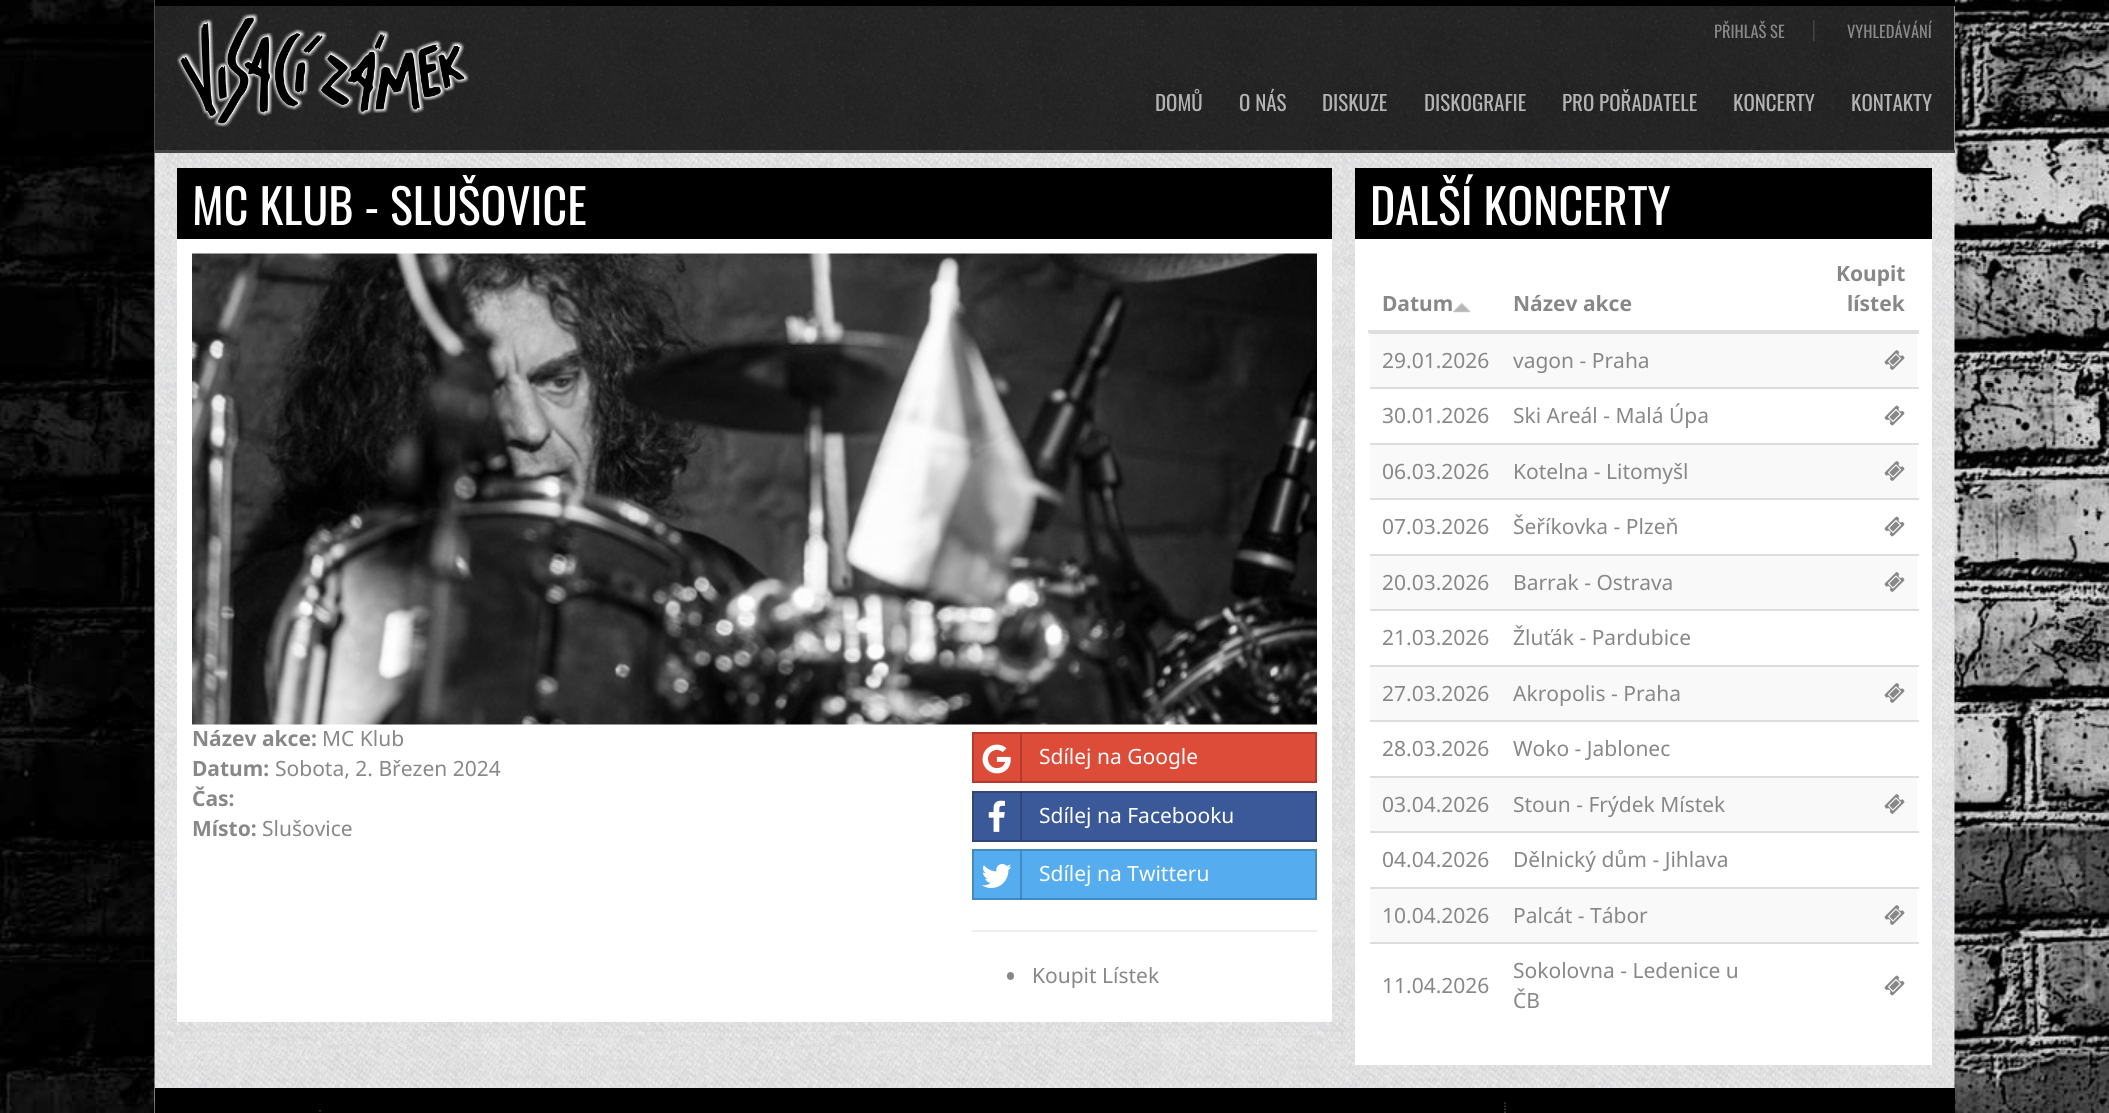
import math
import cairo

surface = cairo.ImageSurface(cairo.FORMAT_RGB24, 2109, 1113)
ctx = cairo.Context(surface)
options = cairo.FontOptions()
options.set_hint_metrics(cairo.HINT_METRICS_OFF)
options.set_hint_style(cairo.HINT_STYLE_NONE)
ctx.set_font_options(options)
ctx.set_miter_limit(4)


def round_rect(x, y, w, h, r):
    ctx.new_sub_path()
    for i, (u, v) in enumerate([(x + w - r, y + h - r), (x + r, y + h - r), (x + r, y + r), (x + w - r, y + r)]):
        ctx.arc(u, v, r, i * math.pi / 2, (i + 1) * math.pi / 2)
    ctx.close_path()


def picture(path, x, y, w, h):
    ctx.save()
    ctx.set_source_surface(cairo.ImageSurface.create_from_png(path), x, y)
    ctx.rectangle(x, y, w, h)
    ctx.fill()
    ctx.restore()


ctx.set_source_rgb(1, 1, 1)
ctx.paint()
picture("img1.png", 0, 0, 2109, 1113)
picture("img2.png", 154, 0, 1801, 1113)
ctx.set_source_rgb(1, 1, 1)
ctx.rectangle(1954, 6, 1, 144)
ctx.fill()
picture("img3.png", 154, 0, 1801, 153)
ctx.set_source_rgb(0, 0, 0)
ctx.rectangle(155, 0, 1800, 6)
ctx.fill()
ctx.set_source_rgb(0.267, 0.267, 0.267)
ctx.rectangle(155, 150, 1800, 3)
ctx.fill()
picture("img4.png", 177, 13, 292, 114)
ctx.select_font_face("Oswald")
ctx.set_font_size(16.5)
ctx.set_source_rgb(0.533, 0.533, 0.533)
ctx.move_to(1714, 38)
ctx.show_text("PŘIHLAŠ SE")
ctx.select_font_face("Noto Sans")
ctx.set_font_size(21)
ctx.set_source_rgb(0.267, 0.267, 0.267)
ctx.move_to(1808, 36)
ctx.show_text("|")
ctx.select_font_face("Oswald")
ctx.set_font_size(16.5)
ctx.set_source_rgb(0.533, 0.533, 0.533)
ctx.move_to(1847, 38)
ctx.show_text("VYHLEDÁVÁNÍ")
ctx.set_font_size(21)
ctx.set_source_rgb(0.702, 0.702, 0.702)
ctx.move_to(1155, 111)
ctx.show_text("DOMŮ")
ctx.move_to(1239, 111)
ctx.show_text("O NÁS")
ctx.move_to(1322, 111)
ctx.show_text("DISKUZE")
ctx.move_to(1424, 111)
ctx.show_text("DISKOGRAFIE")
ctx.move_to(1562, 111)
ctx.show_text("PRO POŘADATELE")
ctx.move_to(1733, 111)
ctx.show_text("KONCERTY")
ctx.move_to(1851, 111)
ctx.show_text("KONTAKTY")
ctx.set_source_rgb(0, 0, 0)
ctx.rectangle(177, 168, 1155, 71)
ctx.fill()
ctx.set_font_size(48)
ctx.set_source_rgb(1, 1, 1)
ctx.move_to(192, 225)
ctx.show_text("MC KLUB - SLUŠOVICE")
ctx.rectangle(177, 239, 1155, 783)
ctx.fill()
picture("img5.png", 192, 253, 1125, 472)
ctx.select_font_face("Noto Sans", cairo.FONT_SLANT_NORMAL, cairo.FONT_WEIGHT_BOLD)
ctx.set_font_size(21)
ctx.set_source_rgb(0.533, 0.533, 0.533)
ctx.move_to(192, 746)
ctx.show_text("Název akce:")
ctx.select_font_face("Noto Sans")
ctx.move_to(322, 746)
ctx.show_text("MC Klub")
ctx.select_font_face("Noto Sans", cairo.FONT_SLANT_NORMAL, cairo.FONT_WEIGHT_BOLD)
ctx.move_to(192, 776)
ctx.show_text("Datum:")
ctx.select_font_face("Noto Sans")
ctx.move_to(275, 776)
ctx.show_text("Sobota, 2. Březen 2024")
ctx.select_font_face("Noto Sans", cairo.FONT_SLANT_NORMAL, cairo.FONT_WEIGHT_BOLD)
ctx.move_to(192, 806)
ctx.show_text("Čas:")
ctx.move_to(192, 836)
ctx.show_text("Místo:")
ctx.select_font_face("Noto Sans")
ctx.move_to(262, 836)
ctx.show_text("Slušovice")
ctx.set_source_rgb(0.867, 0.294, 0.224)
ctx.rectangle(973, 733, 343, 49)
ctx.fill_preserve()
ctx.set_source_rgb(0.694, 0.235, 0.18)
ctx.stroke()
ctx.set_source_rgba(0, 0, 0, 0.2)
ctx.rectangle(1020, 734, 2, 48)
ctx.fill()
picture("img6.png", 982, 744, 29, 30)
ctx.set_source_rgb(1, 1, 1)
ctx.move_to(1039, 764)
ctx.show_text("Sdílej na Google")
ctx.set_source_rgb(0.231, 0.349, 0.596)
ctx.rectangle(973, 792, 343, 49)
ctx.fill_preserve()
ctx.set_source_rgb(0.184, 0.278, 0.478)
ctx.stroke()
ctx.set_source_rgba(0, 0, 0, 0.2)
ctx.rectangle(1020, 792, 2, 48)
ctx.fill()
picture("img7.png", 988, 800, 17, 32)
ctx.set_source_rgb(1, 1, 1)
ctx.move_to(1039, 823)
ctx.show_text("Sdílej na Facebooku")
ctx.set_source_rgb(0.333, 0.675, 0.933)
ctx.rectangle(973, 850, 343, 49)
ctx.fill_preserve()
ctx.set_source_rgb(0.267, 0.541, 0.745)
ctx.stroke()
ctx.set_source_rgba(0, 0, 0, 0.2)
ctx.rectangle(1020, 851, 2, 48)
ctx.fill()
picture("img8.png", 982, 864, 30, 24)
ctx.set_source_rgb(1, 1, 1)
ctx.move_to(1039, 881)
ctx.show_text("Sdílej na Twitteru")
ctx.set_source_rgb(0.933, 0.933, 0.933)
ctx.rectangle(972, 930, 345, 2)
ctx.fill()
ctx.set_source_rgb(0.533, 0.533, 0.533)
round_rect(1007, 972, 7, 8, 3.5)
ctx.fill()
ctx.move_to(1032, 983)
ctx.show_text("Koupit Lístek")
ctx.set_source_rgb(1, 1, 1)
ctx.rectangle(1355, 239, 577, 826)
ctx.fill()
ctx.set_source_rgb(0, 0, 0)
ctx.rectangle(1355, 168, 577, 71)
ctx.fill()
ctx.select_font_face("Oswald")
ctx.set_font_size(48)
ctx.set_source_rgb(1, 1, 1)
ctx.move_to(1370, 225)
ctx.show_text("DALŠÍ KONCERTY")
ctx.select_font_face("Noto Sans", cairo.FONT_SLANT_NORMAL, cairo.FONT_WEIGHT_BOLD)
ctx.set_font_size(21)
ctx.set_source_rgb(0.533, 0.533, 0.533)
ctx.move_to(1382, 311)
ctx.show_text("Datum")
picture("img9.png", 1453, 302, 18, 11)
ctx.move_to(1513, 311)
ctx.show_text("Název akce")
ctx.set_source_rgb(0.867, 0.867, 0.867)
ctx.rectangle(1368, 330, 551, 3)
ctx.fill()
ctx.set_source_rgb(0.533, 0.533, 0.533)
ctx.move_to(1836, 281)
ctx.show_text("Koupit")
ctx.move_to(1847, 311)
ctx.show_text("lístek")
ctx.set_source_rgb(0.976, 0.976, 0.976)
ctx.rectangle(1370, 334, 547, 53)
ctx.fill()
ctx.set_source_rgb(0.867, 0.867, 0.867)
ctx.rectangle(1370, 333, 549, 1)
ctx.fill()
picture("img10.png", 1884, 350, 21, 20)
ctx.select_font_face("Noto Sans")
ctx.set_source_rgb(0.533, 0.533, 0.533)
ctx.move_to(1382, 368)
ctx.show_text("29.01.2026")
ctx.move_to(1513, 368)
ctx.show_text("vagon - Praha")
ctx.set_source_rgb(0.867, 0.867, 0.867)
ctx.rectangle(1370, 387, 549, 2)
ctx.fill()
picture("img11.png", 1884, 405, 21, 21)
ctx.set_source_rgb(0.533, 0.533, 0.533)
ctx.move_to(1382, 423)
ctx.show_text("30.01.2026")
ctx.move_to(1513, 423)
ctx.show_text("Ski Areál - Malá Úpa")
ctx.set_source_rgb(0.976, 0.976, 0.976)
ctx.rectangle(1370, 445, 547, 53)
ctx.fill()
ctx.set_source_rgb(0.867, 0.867, 0.867)
ctx.rectangle(1370, 443, 549, 2)
ctx.fill()
picture("img10.png", 1884, 461, 21, 20)
ctx.set_source_rgb(0.533, 0.533, 0.533)
ctx.move_to(1382, 479)
ctx.show_text("06.03.2026")
ctx.move_to(1513, 479)
ctx.show_text("Kotelna - Litomyšl")
ctx.set_source_rgb(0.867, 0.867, 0.867)
ctx.rectangle(1370, 498, 549, 2)
ctx.fill()
picture("img11.png", 1884, 516, 21, 21)
ctx.set_source_rgb(0.533, 0.533, 0.533)
ctx.move_to(1382, 534)
ctx.show_text("07.03.2026")
ctx.move_to(1513, 534)
ctx.show_text("Šeříkovka - Plzeň")
ctx.set_source_rgb(0.976, 0.976, 0.976)
ctx.rectangle(1370, 556, 547, 53)
ctx.fill()
ctx.set_source_rgb(0.867, 0.867, 0.867)
ctx.rectangle(1370, 554, 549, 2)
ctx.fill()
picture("img10.png", 1884, 572, 21, 20)
ctx.set_source_rgb(0.533, 0.533, 0.533)
ctx.move_to(1382, 590)
ctx.show_text("20.03.2026")
ctx.move_to(1513, 590)
ctx.show_text("Barrak - Ostrava")
ctx.set_source_rgb(0.867, 0.867, 0.867)
ctx.rectangle(1370, 609, 549, 2)
ctx.fill()
ctx.set_source_rgb(0.533, 0.533, 0.533)
ctx.move_to(1382, 645)
ctx.show_text("21.03.2026")
ctx.move_to(1513, 645)
ctx.show_text("Žluťák - Pardubice")
ctx.set_source_rgb(0.976, 0.976, 0.976)
ctx.rectangle(1370, 667, 547, 53)
ctx.fill()
ctx.set_source_rgb(0.867, 0.867, 0.867)
ctx.rectangle(1370, 665, 549, 2)
ctx.fill()
picture("img10.png", 1884, 683, 21, 20)
ctx.set_source_rgb(0.533, 0.533, 0.533)
ctx.move_to(1382, 701)
ctx.show_text("27.03.2026")
ctx.move_to(1513, 701)
ctx.show_text("Akropolis - Praha")
ctx.set_source_rgb(0.867, 0.867, 0.867)
ctx.rectangle(1370, 720, 549, 2)
ctx.fill()
ctx.set_source_rgb(0.533, 0.533, 0.533)
ctx.move_to(1382, 756)
ctx.show_text("28.03.2026")
ctx.move_to(1513, 756)
ctx.show_text("Woko - Jablonec")
ctx.set_source_rgb(0.976, 0.976, 0.976)
ctx.rectangle(1370, 778, 547, 53)
ctx.fill()
ctx.set_source_rgb(0.867, 0.867, 0.867)
ctx.rectangle(1370, 776, 549, 2)
ctx.fill()
picture("img10.png", 1884, 794, 21, 20)
ctx.set_source_rgb(0.533, 0.533, 0.533)
ctx.move_to(1382, 812)
ctx.show_text("03.04.2026")
ctx.move_to(1513, 812)
ctx.show_text("Stoun - Frýdek Místek")
ctx.set_source_rgb(0.867, 0.867, 0.867)
ctx.rectangle(1370, 831, 549, 2)
ctx.fill()
ctx.set_source_rgb(0.533, 0.533, 0.533)
ctx.move_to(1382, 867)
ctx.show_text("04.04.2026")
ctx.move_to(1513, 867)
ctx.show_text("Dělnický dům - Jihlava")
ctx.set_source_rgb(0.976, 0.976, 0.976)
ctx.rectangle(1370, 889, 547, 53)
ctx.fill()
ctx.set_source_rgb(0.867, 0.867, 0.867)
ctx.rectangle(1370, 887, 549, 2)
ctx.fill()
picture("img10.png", 1884, 905, 21, 20)
ctx.set_source_rgb(0.533, 0.533, 0.533)
ctx.move_to(1382, 923)
ctx.show_text("10.04.2026")
ctx.move_to(1513, 923)
ctx.show_text("Palcát - Tábor")
ctx.set_source_rgb(0.867, 0.867, 0.867)
ctx.rectangle(1370, 942, 549, 2)
ctx.fill()
picture("img11.png", 1884, 975, 21, 21)
ctx.set_source_rgb(0.533, 0.533, 0.533)
ctx.move_to(1382, 993)
ctx.show_text("11.04.2026")
ctx.move_to(1513, 978)
ctx.show_text("Sokolovna - Ledenice u")
ctx.move_to(1513, 1008)
ctx.show_text("ČB")
ctx.set_source_rgb(0, 0, 0)
ctx.rectangle(155, 1088, 1800, 25)
ctx.fill()
ctx.new_path()
ctx.move_to(320, 1110)
ctx.line_to(320, 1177.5)
ctx.set_source_rgb(0.267, 0.267, 0.267)
ctx.set_line_width(1.5)
ctx.set_dash([1.5, 1.5])
ctx.stroke()
ctx.new_path()
ctx.move_to(1505, 1102.5)
ctx.line_to(1505, 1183.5)
ctx.stroke()
surface.write_to_png("page.png")
